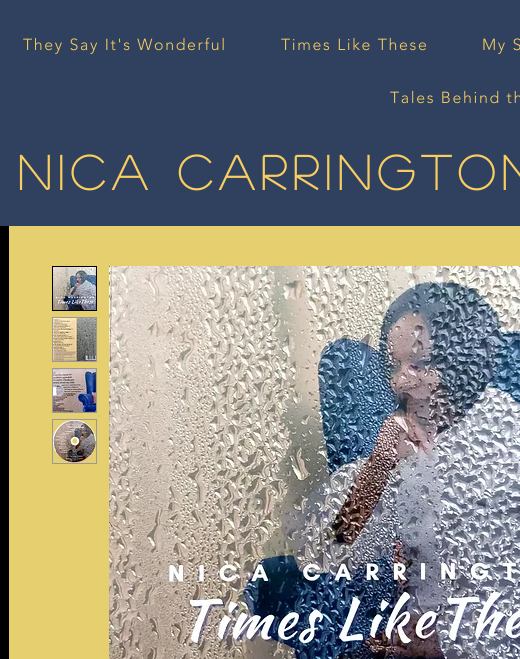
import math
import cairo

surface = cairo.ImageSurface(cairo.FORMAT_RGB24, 520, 659)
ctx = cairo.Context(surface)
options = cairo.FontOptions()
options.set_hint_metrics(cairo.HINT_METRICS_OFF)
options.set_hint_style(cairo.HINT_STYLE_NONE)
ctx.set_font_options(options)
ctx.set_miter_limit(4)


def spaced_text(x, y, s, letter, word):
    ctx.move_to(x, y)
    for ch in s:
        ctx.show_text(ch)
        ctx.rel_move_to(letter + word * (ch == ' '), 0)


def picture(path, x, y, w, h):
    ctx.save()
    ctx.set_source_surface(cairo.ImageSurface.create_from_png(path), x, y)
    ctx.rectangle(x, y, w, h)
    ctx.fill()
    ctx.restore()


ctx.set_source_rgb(0.184, 0.255, 0.369)
ctx.paint()
ctx.select_font_face("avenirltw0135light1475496 Light")
ctx.set_font_size(16)
ctx.set_source_rgb(0.976, 0.804, 0.373)
spaced_text(23, 50, "They Say It's Wonderful", 1.6, 0)
spaced_text(281, 50, "Times Like These", 1.6, 0)
spaced_text(482, 50, "My S", 1.6, 0)
spaced_text(390, 103, "Tales Behind th", 1.6, 0)
ctx.select_font_face("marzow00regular", cairo.FONT_SLANT_NORMAL, cairo.FONT_WEIGHT_BOLD)
ctx.set_font_size(48)
spaced_text(18, 190, "NICA CARRINGTON", 7.25, 0)
ctx.set_source_rgb(0, 0, 0)
ctx.rectangle(0, 226, 9, 433)
ctx.fill()
ctx.set_source_rgb(0.898, 0.812, 0.431)
ctx.rectangle(9, 226, 511, 433)
ctx.fill()
ctx.rectangle(52.5, 266.5, 44, 44)
ctx.set_source_rgb(0, 0, 0)
ctx.set_line_width(1)
ctx.stroke()
picture("img1.png", 53, 267, 43, 43)
ctx.rectangle(52.5, 317.5, 44, 44)
ctx.set_source_rgb(0.6, 0.6, 0.6)
ctx.stroke()
picture("img2.png", 53, 318, 43, 43)
ctx.rectangle(52.5, 368.5, 44, 44)
ctx.stroke()
picture("img3.png", 53, 369, 43, 43)
ctx.rectangle(52.5, 419.5, 44, 44)
ctx.stroke()
picture("img4.png", 53, 420, 43, 43)
picture("img5.png", 109, 266, 411, 393)
surface.write_to_png("page.png")
